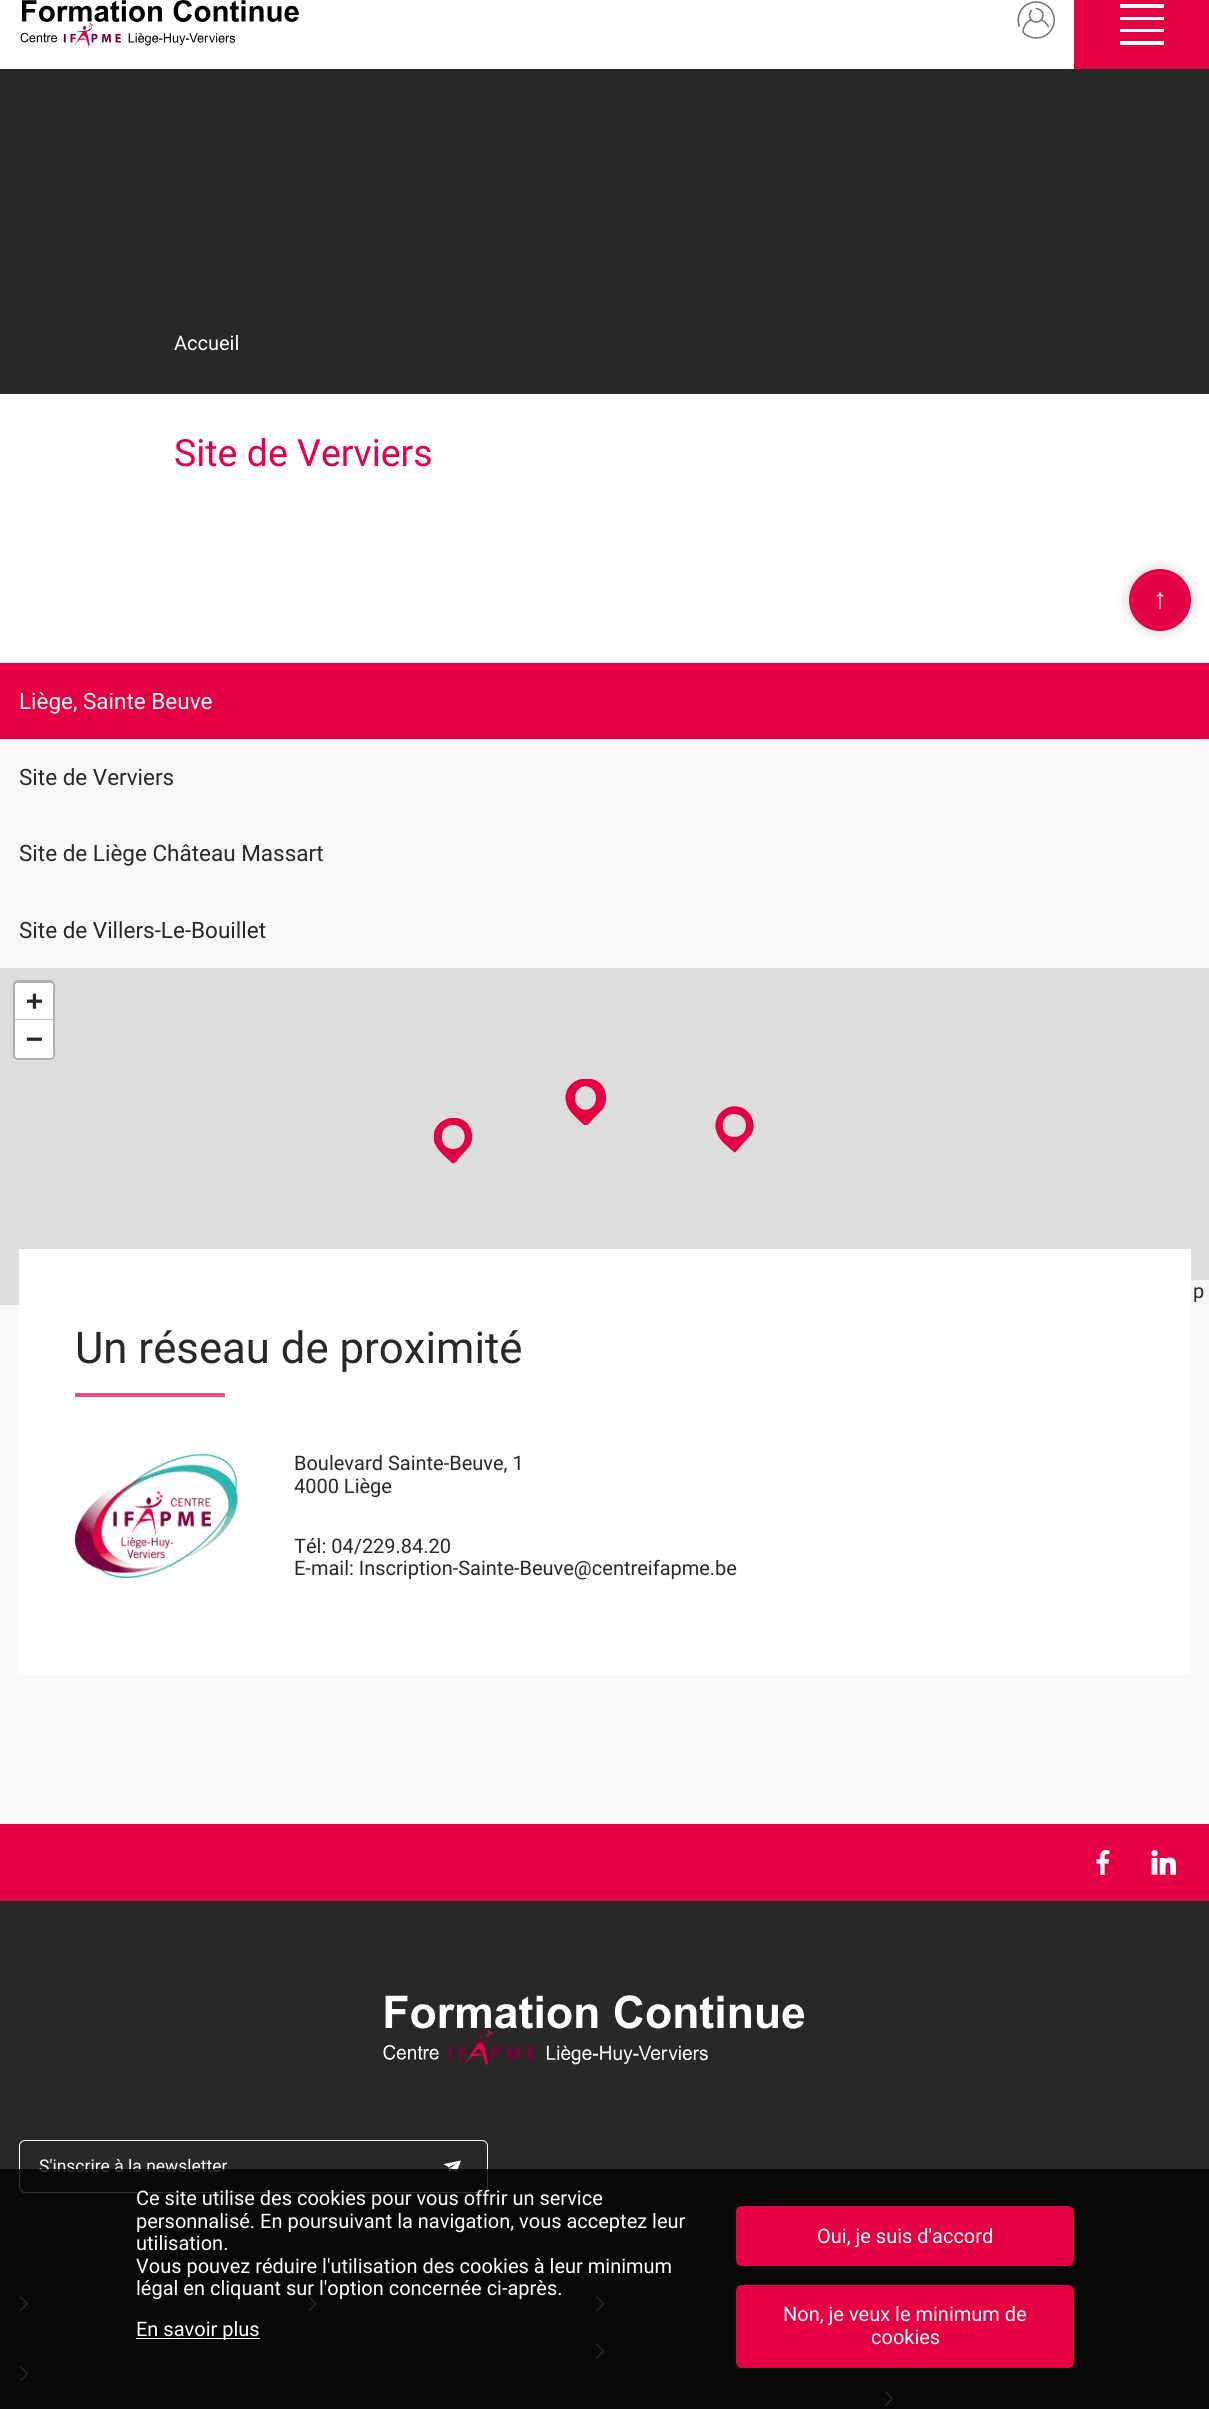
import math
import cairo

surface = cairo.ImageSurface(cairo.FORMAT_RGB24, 1209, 2409)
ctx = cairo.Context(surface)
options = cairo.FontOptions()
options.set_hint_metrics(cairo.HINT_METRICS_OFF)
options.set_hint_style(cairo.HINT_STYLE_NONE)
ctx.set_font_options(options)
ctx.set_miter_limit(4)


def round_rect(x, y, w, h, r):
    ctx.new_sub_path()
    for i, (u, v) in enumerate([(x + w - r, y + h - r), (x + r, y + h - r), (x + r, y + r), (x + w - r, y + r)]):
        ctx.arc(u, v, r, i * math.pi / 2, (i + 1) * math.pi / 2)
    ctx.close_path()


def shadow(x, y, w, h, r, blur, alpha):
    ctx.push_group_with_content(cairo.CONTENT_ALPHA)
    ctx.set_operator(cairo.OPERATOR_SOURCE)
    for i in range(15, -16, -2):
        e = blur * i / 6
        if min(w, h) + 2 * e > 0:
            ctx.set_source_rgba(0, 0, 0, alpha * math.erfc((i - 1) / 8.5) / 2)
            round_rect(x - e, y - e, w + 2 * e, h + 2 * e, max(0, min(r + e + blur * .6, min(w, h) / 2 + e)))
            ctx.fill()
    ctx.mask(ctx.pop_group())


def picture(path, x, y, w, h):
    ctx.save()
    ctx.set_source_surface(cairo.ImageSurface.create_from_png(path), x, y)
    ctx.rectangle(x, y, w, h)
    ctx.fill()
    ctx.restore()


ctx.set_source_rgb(1, 1, 1)
ctx.paint()
picture("img1.png", 20, 0, 279, 48)
picture("img2.png", 1017, 1, 38, 38)
ctx.set_source_rgb(0.898, 0, 0.263)
ctx.rectangle(1074, 0, 135, 69)
ctx.fill()
ctx.set_source_rgb(1, 1, 1)
ctx.new_path()
ctx.move_to(1120, 4)
ctx.line_to(1120, 8)
ctx.line_to(1164, 8)
ctx.line_to(1164, 4)
ctx.close_path()
ctx.move_to(1120, 17)
ctx.line_to(1120, 20)
ctx.line_to(1164, 20)
ctx.line_to(1164, 17)
ctx.close_path()
ctx.move_to(1120, 29)
ctx.line_to(1120, 32)
ctx.line_to(1164, 32)
ctx.line_to(1164, 29)
ctx.close_path()
ctx.move_to(1120, 41)
ctx.line_to(1120, 45)
ctx.line_to(1164, 45)
ctx.line_to(1164, 41)
ctx.close_path()
ctx.fill()
ctx.set_source_rgb(0.157, 0.157, 0.157)
ctx.rectangle(0, 69, 1209, 325)
ctx.fill()
ctx.select_font_face("Roboto")
ctx.set_font_size(20)
ctx.set_source_rgb(1, 1, 1)
ctx.move_to(174, 350)
ctx.show_text("Accueil")
ctx.set_font_size(37.5)
ctx.set_source_rgb(0.898, 0, 0.263)
ctx.move_to(174, 466)
ctx.show_text("Site de Verviers")
ctx.set_source_rgb(0.451, 0.451, 0.451)
shadow(1129, 569, 62, 62, 31, 6, 0.35)
ctx.set_source_rgb(0.898, 0, 0.263)
ctx.arc(1160, 600, 31, 0, 2 * math.pi)
ctx.fill()
ctx.select_font_face("Liberation Sans")
ctx.set_font_size(28)
ctx.set_source_rgb(1, 1, 1)
ctx.move_to(1153, 608)
ctx.show_text("↑")
ctx.set_source_rgb(0.973, 0.973, 0.973)
ctx.rectangle(0, 739, 1209, 1085)
ctx.fill()
ctx.set_source_rgb(0.898, 0, 0.263)
ctx.rectangle(0, 663, 1209, 76)
ctx.fill()
ctx.select_font_face("Roboto")
ctx.set_font_size(22.5)
ctx.set_source_rgb(1, 1, 1)
ctx.move_to(19, 709)
ctx.show_text("Liège, Sainte Beuve")
ctx.set_source_rgb(0.157, 0.157, 0.157)
ctx.move_to(19, 785)
ctx.show_text("Site de Verviers")
ctx.move_to(19, 861)
ctx.show_text("Site de Liège Château Massart")
ctx.move_to(19, 938)
ctx.show_text("Site de Villers-Le-Bouillet")
ctx.set_source_rgb(0.867, 0.867, 0.867)
ctx.rectangle(0, 968, 1209, 337)
ctx.fill()
round_rect(14.5, 981.5, 39, 77, 3.5)
ctx.set_source_rgb(0.694, 0.694, 0.694)
ctx.set_line_width(3)
ctx.stroke()
ctx.set_source_rgb(1, 1, 1)
ctx.new_path()
ctx.move_to(17.5, 983)
ctx.line_to(50.5, 983)
ctx.curve_to(52, 983, 53, 984, 53, 985.5)
ctx.line_to(53, 1020)
ctx.line_to(15, 1020)
ctx.line_to(15, 985.5)
ctx.curve_to(15, 984, 16, 983, 17.5, 983)
ctx.close_path()
ctx.fill()
ctx.set_source_rgb(0.8, 0.8, 0.8)
ctx.rectangle(15, 1019, 38, 1)
ctx.fill()
ctx.select_font_face("DejaVu Sans Mono", cairo.FONT_SLANT_NORMAL, cairo.FONT_WEIGHT_BOLD)
ctx.set_font_size(28)
ctx.set_source_rgb(0.157, 0.157, 0.157)
ctx.move_to(26, 1010)
ctx.show_text("+")
ctx.set_source_rgb(1, 1, 1)
ctx.new_path()
ctx.move_to(15, 1020)
ctx.line_to(53, 1020)
ctx.line_to(53, 1055.5)
ctx.curve_to(53, 1057, 52, 1058, 50.5, 1058)
ctx.line_to(17.5, 1058)
ctx.curve_to(16, 1058, 15, 1057, 15, 1055.5)
ctx.close_path()
ctx.fill()
ctx.set_source_rgb(0.157, 0.157, 0.157)
ctx.move_to(26, 1048)
ctx.show_text("−")
ctx.set_source_rgb(0.961, 0.961, 0.961)
ctx.rectangle(1191, 1280, 18, 25)
ctx.fill()
ctx.select_font_face("Roboto")
ctx.set_font_size(20)
ctx.set_source_rgb(0.157, 0.157, 0.157)
ctx.move_to(1193, 1298)
ctx.show_text("p")
ctx.save()
ctx.rectangle(565, 1079, 39, 46)
ctx.clip()
ctx.set_source_rgb(0.898, 0, 0.263)
ctx.new_path()
ctx.move_to(598, 1084)
ctx.curve_to(583, 1070, 559, 1086, 567, 1105)
ctx.curve_to(569, 1112, 578, 1119, 584, 1125)
ctx.curve_to(585, 1126, 589, 1121, 589, 1120)
ctx.line_to(600, 1109)
ctx.curve_to(606, 1101, 604, 1091, 598, 1084)
ctx.close_path()
ctx.move_to(584, 1110)
ctx.curve_to(569, 1110, 569, 1086, 584, 1086)
ctx.curve_to(600, 1086, 600, 1110, 584, 1110)
ctx.close_path()
ctx.fill()
ctx.restore()
ctx.save()
ctx.rectangle(434, 1118, 39, 46)
ctx.clip()
ctx.set_source_rgb(0.898, 0, 0.263)
ctx.new_path()
ctx.move_to(467, 1123)
ctx.curve_to(452, 1109, 427, 1125, 435, 1144)
ctx.curve_to(438, 1151, 447, 1158, 452, 1163)
ctx.curve_to(454, 1165, 458, 1160, 458, 1159)
ctx.line_to(469, 1147)
ctx.curve_to(474, 1140, 473, 1130, 467, 1123)
ctx.close_path()
ctx.move_to(453, 1149)
ctx.curve_to(438, 1149, 438, 1125, 453, 1125)
ctx.curve_to(469, 1125, 468, 1149, 453, 1149)
ctx.close_path()
ctx.fill()
ctx.restore()
ctx.save()
ctx.rectangle(568, 1079, 38, 46)
ctx.clip()
ctx.set_source_rgb(0.898, 0, 0.263)
ctx.new_path()
ctx.move_to(601, 1084)
ctx.curve_to(586, 1070, 561, 1086, 569, 1105)
ctx.curve_to(572, 1112, 581, 1119, 586, 1125)
ctx.curve_to(588, 1126, 591, 1121, 592, 1120)
ctx.line_to(603, 1109)
ctx.curve_to(608, 1101, 607, 1091, 601, 1084)
ctx.close_path()
ctx.move_to(587, 1110)
ctx.curve_to(571, 1110, 571, 1086, 587, 1086)
ctx.curve_to(603, 1086, 602, 1110, 587, 1110)
ctx.close_path()
ctx.fill()
ctx.restore()
ctx.set_source_rgb(0.898, 0, 0.263)
ctx.new_path()
ctx.move_to(748, 1112)
ctx.curve_to(733, 1097, 709, 1114, 717, 1133)
ctx.curve_to(719, 1140, 728, 1147, 734, 1152)
ctx.curve_to(735, 1154, 739, 1148, 739, 1148)
ctx.line_to(750, 1136)
ctx.curve_to(756, 1129, 754, 1118, 748, 1112)
ctx.close_path()
ctx.move_to(734, 1137)
ctx.curve_to(719, 1137, 719, 1114, 734, 1114)
ctx.curve_to(750, 1114, 750, 1137, 734, 1137)
ctx.close_path()
ctx.fill()
ctx.set_source_rgb(1, 1, 1)
ctx.rectangle(19, 1249, 1172, 425)
ctx.fill()
ctx.set_font_size(43.75)
ctx.set_source_rgb(0.157, 0.157, 0.157)
ctx.move_to(75, 1363)
ctx.show_text("Un réseau de proximité")
ctx.set_source_rgb(0.929, 0.31, 0.49)
ctx.rectangle(75, 1393, 150, 4)
ctx.fill()
picture("img3.png", 75, 1454, 163, 124)
ctx.set_font_size(20)
ctx.set_source_rgb(0.157, 0.157, 0.157)
ctx.move_to(294, 1470)
ctx.show_text("Boulevard Sainte-Beuve, 1")
ctx.move_to(294, 1493)
ctx.show_text("4000 Liège")
ctx.move_to(294, 1553)
ctx.show_text("Tél: 04/229.84.20")
ctx.move_to(294, 1575)
ctx.show_text("E-mail: Inscription-Sainte-Beuve@centreifapme.be")
ctx.set_source_rgb(0.898, 0, 0.263)
ctx.rectangle(0, 1824, 1209, 77)
ctx.fill()
picture("img4.png", 1096, 1850, 14, 25)
picture("img5.png", 1151, 1850, 25, 25)
ctx.set_source_rgb(0.157, 0.157, 0.157)
ctx.rectangle(0, 1901, 1209, 508)
ctx.fill()
picture("img6.png", 383, 1995, 422, 73)
round_rect(19.5, 2140.5, 468, 52, 5.5)
ctx.set_source_rgb(1, 1, 1)
ctx.set_line_width(1)
ctx.stroke()
ctx.set_font_size(17.5)
ctx.move_to(39, 2172)
ctx.show_text("S'inscrire à la newsletter")
picture("img7.png", 443, 2160, 18, 12)
picture("img8.png", 19, 2296, 9, 16)
picture("img8.png", 19, 2366, 9, 16)
picture("img9.png", 308, 2296, 9, 16)
picture("img10.png", 596, 2296, 8, 16)
picture("img11.png", 596, 2343, 8, 16)
picture("img8.png", 884, 2391, 9, 16)
ctx.set_source_rgba(0, 0, 0, 0.8)
ctx.rectangle(0, 2169, 1209, 240)
ctx.fill()
ctx.set_font_size(20)
ctx.set_source_rgb(1, 1, 1)
ctx.move_to(136, 2205)
ctx.show_text("Ce site utilise des cookies pour vous offrir un service")
ctx.move_to(136, 2228)
ctx.show_text("personnalisé. En poursuivant la navigation, vous acceptez leur")
ctx.move_to(136, 2250)
ctx.show_text("utilisation.")
ctx.move_to(136, 2273)
ctx.show_text("Vous pouvez réduire l'utilisation des cookies à leur minimum")
ctx.move_to(136, 2295)
ctx.show_text("légal en cliquant sur l'option concernée ci-après.")
ctx.rectangle(136, 2338, 124, 1)
ctx.fill()
ctx.move_to(136, 2336)
ctx.show_text("En savoir plus")
ctx.set_source_rgb(0.898, 0, 0.263)
round_rect(736, 2206, 338, 60, 6)
ctx.fill()
ctx.set_source_rgb(1, 1, 1)
ctx.move_to(817, 2243)
ctx.show_text("Oui, je suis d'accord")
ctx.set_source_rgb(0.898, 0, 0.263)
round_rect(736, 2285, 338, 83, 6)
ctx.fill()
ctx.set_source_rgb(1, 1, 1)
ctx.move_to(783, 2321)
ctx.show_text("Non, je veux le minimum de")
ctx.move_to(871, 2344)
ctx.show_text("cookies")
surface.write_to_png("page.png")
